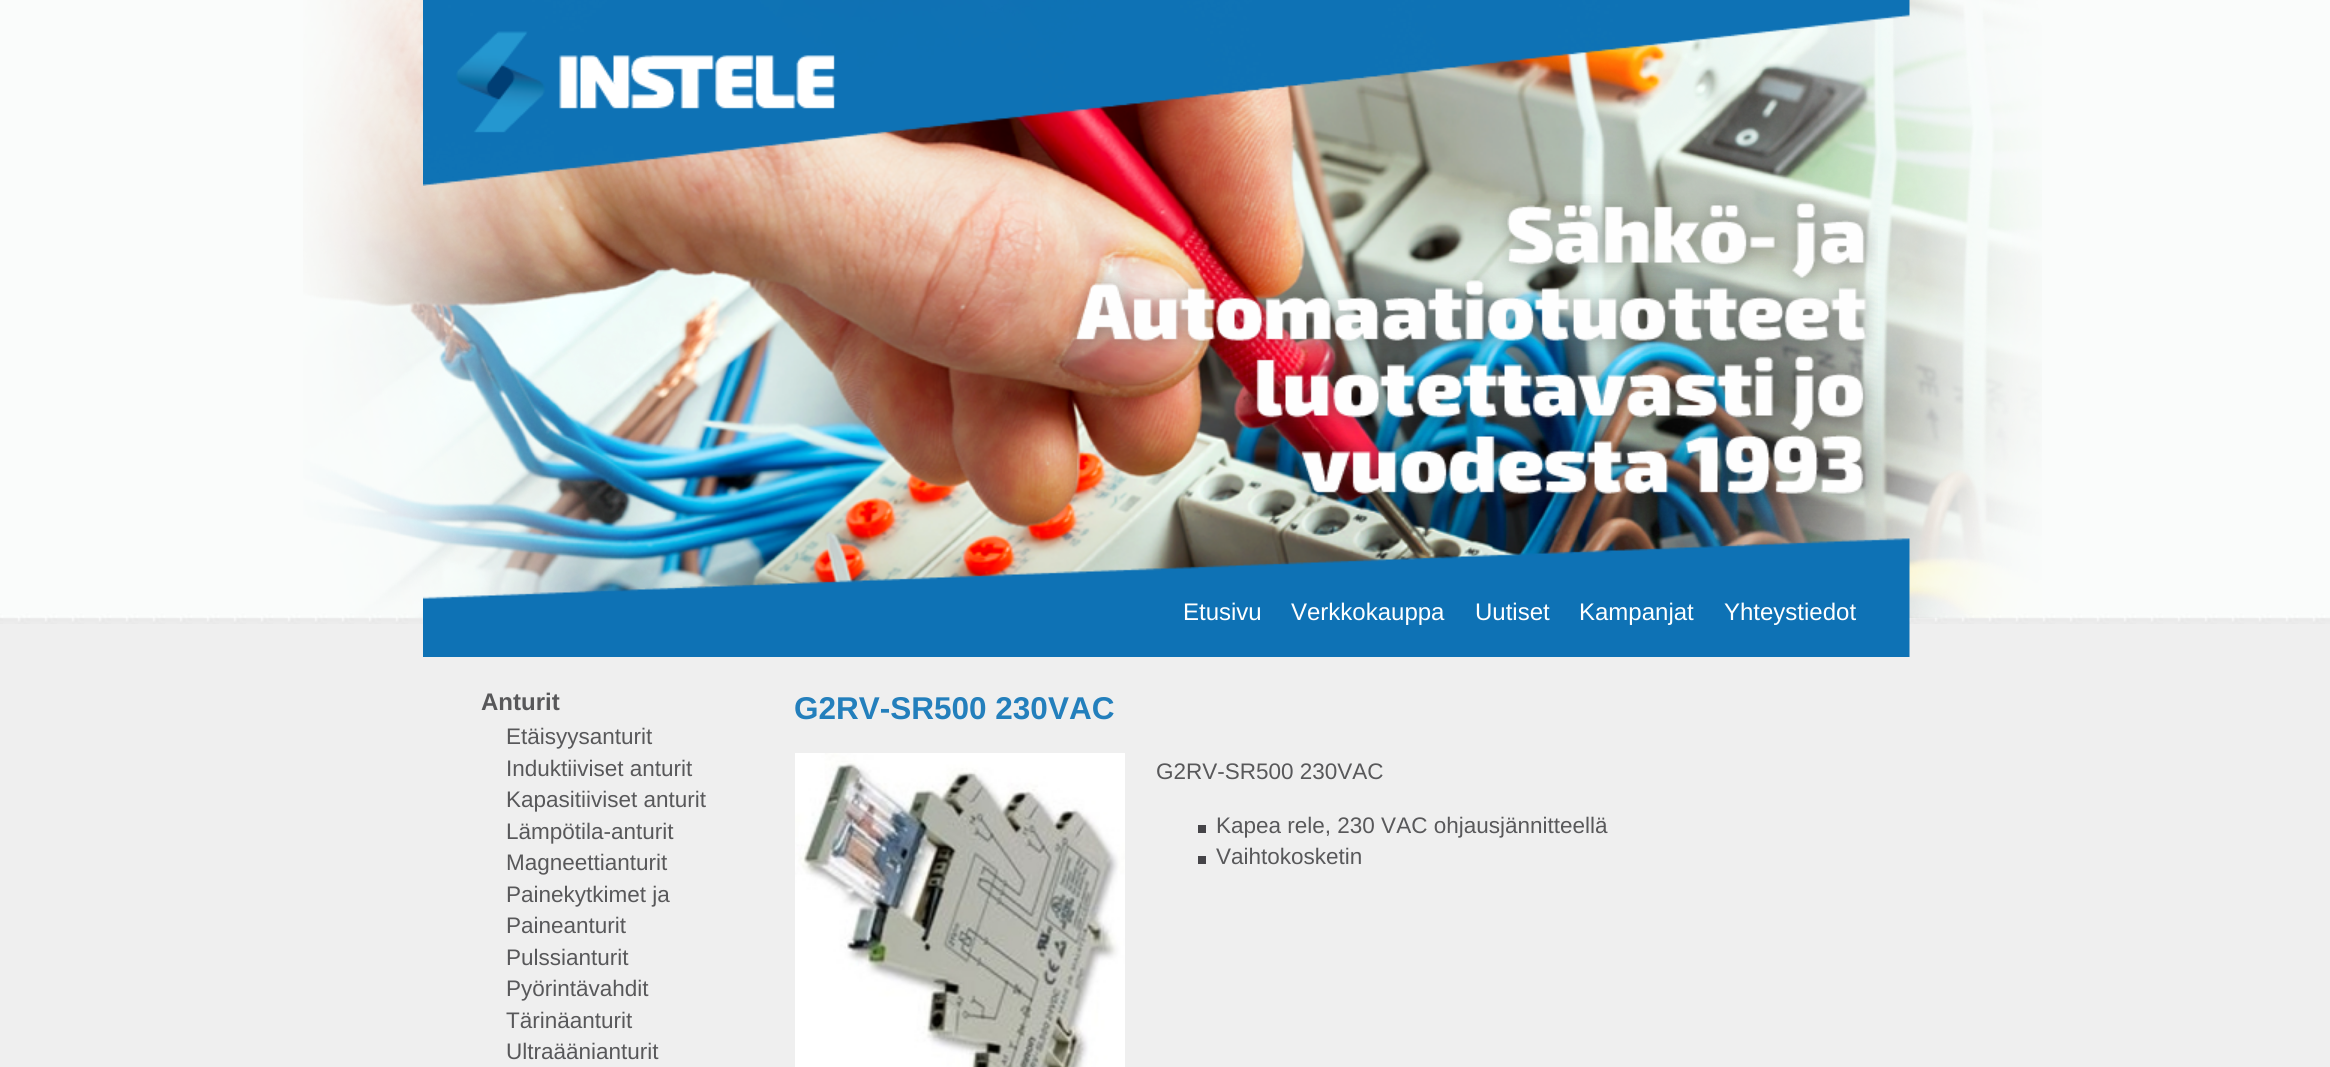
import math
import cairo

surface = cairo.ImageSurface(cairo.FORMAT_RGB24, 2330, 1067)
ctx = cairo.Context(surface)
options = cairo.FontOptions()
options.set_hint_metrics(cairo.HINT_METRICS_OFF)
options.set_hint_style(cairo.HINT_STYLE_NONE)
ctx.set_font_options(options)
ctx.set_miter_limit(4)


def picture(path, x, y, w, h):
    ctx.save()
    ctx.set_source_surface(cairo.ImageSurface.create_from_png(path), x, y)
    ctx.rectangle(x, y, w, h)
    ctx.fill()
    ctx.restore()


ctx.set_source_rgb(0.937, 0.937, 0.937)
ctx.paint()
picture("img1.png", 0, 0, 2330, 624)
picture("img2.png", 303, 0, 1739, 618)
picture("img3.png", 423, 0, 1487, 186)
picture("img4.png", 1069, 194, 809, 312)
picture("img5.png", 423, 538, 1487, 119)
ctx.select_font_face("Liberation Sans")
ctx.set_font_size(24)
ctx.set_source_rgb(1, 1, 1)
ctx.move_to(1183, 620)
ctx.show_text("Etusivu")
ctx.move_to(1291, 620)
ctx.show_text("Verkkokauppa")
ctx.move_to(1475, 620)
ctx.show_text("Uutiset")
ctx.move_to(1579, 620)
ctx.show_text("Kampanjat")
ctx.move_to(1724, 620)
ctx.show_text("Yhteystiedot")
ctx.select_font_face("Liberation Sans", cairo.FONT_SLANT_NORMAL, cairo.FONT_WEIGHT_BOLD)
ctx.set_source_rgb(0.345, 0.345, 0.353)
ctx.move_to(481, 710)
ctx.show_text("Anturit")
ctx.select_font_face("Liberation Sans")
ctx.set_font_size(22.5)
ctx.move_to(506, 744)
ctx.show_text("Etäisyysanturit")
ctx.move_to(506, 776)
ctx.show_text("Induktiiviset anturit")
ctx.move_to(506, 807)
ctx.show_text("Kapasitiiviset anturit")
ctx.move_to(506, 839)
ctx.show_text("Lämpötila-anturit")
ctx.move_to(506, 870)
ctx.show_text("Magneettianturit")
ctx.move_to(506, 902)
ctx.show_text("Painekytkimet ja")
ctx.move_to(506, 933)
ctx.show_text("Paineanturit")
ctx.move_to(506, 965)
ctx.show_text("Pulssianturit")
ctx.move_to(506, 996)
ctx.show_text("Pyörintävahdit")
ctx.move_to(506, 1028)
ctx.show_text("Tärinäanturit")
ctx.move_to(506, 1059)
ctx.show_text("Ultraäänianturit")
ctx.select_font_face("Liberation Sans", cairo.FONT_SLANT_NORMAL, cairo.FONT_WEIGHT_BOLD)
ctx.set_font_size(31.5)
ctx.set_source_rgb(0.137, 0.498, 0.737)
ctx.move_to(794, 719)
ctx.show_text("G2RV-SR500 230VAC")
picture("img6.png", 795, 753, 330, 314)
ctx.select_font_face("Liberation Sans")
ctx.set_font_size(22.5)
ctx.set_source_rgb(0.345, 0.345, 0.353)
ctx.move_to(1156, 779)
ctx.show_text("G2RV-SR500 230VAC")
ctx.set_source_rgb(0.271, 0.267, 0.282)
ctx.rectangle(1198, 825, 8, 8)
ctx.fill()
ctx.set_source_rgb(0.345, 0.345, 0.353)
ctx.move_to(1216, 833)
ctx.show_text("Kapea rele, 230 VAC ohjausjännitteellä")
ctx.set_source_rgb(0.271, 0.267, 0.282)
ctx.rectangle(1198, 856, 8, 8)
ctx.fill()
ctx.set_source_rgb(0.345, 0.345, 0.353)
ctx.move_to(1216, 864)
ctx.show_text("Vaihtokosketin")
surface.write_to_png("page.png")
